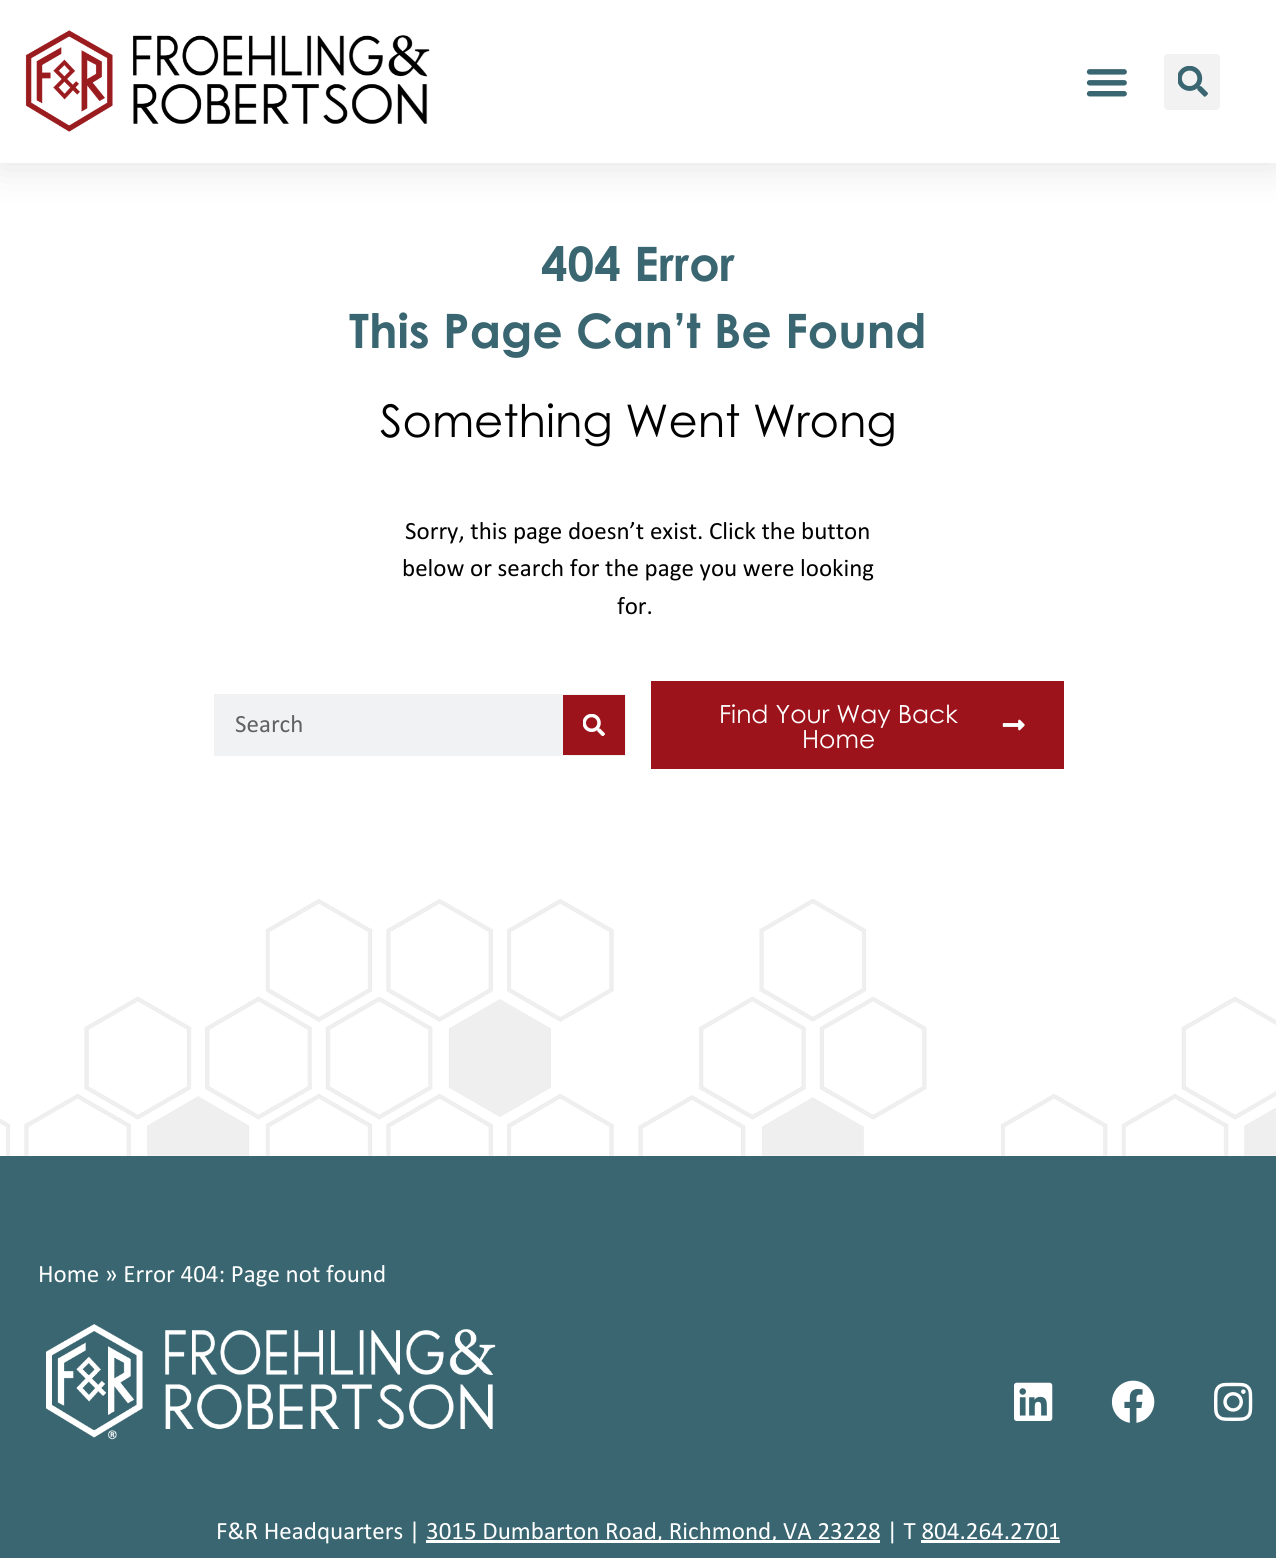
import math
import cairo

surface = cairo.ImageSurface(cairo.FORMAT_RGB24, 1276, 1558)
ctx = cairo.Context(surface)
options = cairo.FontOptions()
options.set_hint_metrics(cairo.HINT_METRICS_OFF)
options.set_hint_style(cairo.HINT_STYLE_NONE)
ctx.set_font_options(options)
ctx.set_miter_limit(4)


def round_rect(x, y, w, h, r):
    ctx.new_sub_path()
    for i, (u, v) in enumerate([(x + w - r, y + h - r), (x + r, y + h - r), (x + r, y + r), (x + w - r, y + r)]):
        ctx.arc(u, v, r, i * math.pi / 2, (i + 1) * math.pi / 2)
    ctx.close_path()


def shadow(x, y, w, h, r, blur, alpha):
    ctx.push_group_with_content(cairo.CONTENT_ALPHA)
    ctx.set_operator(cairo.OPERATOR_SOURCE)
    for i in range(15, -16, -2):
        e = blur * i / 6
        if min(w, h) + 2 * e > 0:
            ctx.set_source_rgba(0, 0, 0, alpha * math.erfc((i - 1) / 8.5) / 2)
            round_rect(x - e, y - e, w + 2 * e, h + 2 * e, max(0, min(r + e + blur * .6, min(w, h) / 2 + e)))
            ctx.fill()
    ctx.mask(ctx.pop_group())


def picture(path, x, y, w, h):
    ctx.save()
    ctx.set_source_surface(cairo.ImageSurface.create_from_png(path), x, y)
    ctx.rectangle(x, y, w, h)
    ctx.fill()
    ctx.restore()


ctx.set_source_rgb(1, 1, 1)
ctx.paint()
ctx.set_source_rgb(0, 0, 0)
shadow(0, 6, 1276, 163, 0, 19, 0.1)
ctx.set_source_rgb(1, 1, 1)
ctx.rectangle(0, 0, 1276, 163)
ctx.fill()
picture("img1.png", 25, 30, 405, 102)
picture("img2.png", 1086, 69, 41, 28)
ctx.set_source_rgb(0.949, 0.949, 0.949)
round_rect(1164, 54, 56, 56, 4)
ctx.fill()
picture("img3.png", 1178, 66, 30, 31)
ctx.select_font_face("Century Gothic", cairo.FONT_SLANT_NORMAL, cairo.FONT_WEIGHT_BOLD)
ctx.set_font_size(47.5)
ctx.set_source_rgb(0.224, 0.4, 0.443)
ctx.move_to(541, 281)
ctx.show_text("404 Error")
ctx.move_to(349, 348)
ctx.show_text("This Page Can’t Be Found")
ctx.select_font_face("Century Gothic")
ctx.set_font_size(45)
ctx.set_source_rgb(0, 0, 0)
ctx.move_to(380, 437)
ctx.show_text("Something Went Wrong")
ctx.select_font_face("Calibri")
ctx.set_font_size(25)
ctx.move_to(405, 539)
ctx.show_text("Sorry, this page doesn’t exist. Click the button")
ctx.move_to(402, 576)
ctx.show_text("below or search for the page you were looking")
ctx.move_to(617, 614)
ctx.show_text("for.")
ctx.set_source_rgb(0.945, 0.949, 0.953)
ctx.rectangle(214, 694, 412, 62)
ctx.fill()
ctx.set_source_rgb(0.376, 0.38, 0.38)
ctx.move_to(235, 732)
ctx.show_text("Search")
ctx.set_source_rgb(0.616, 0.078, 0.11)
ctx.rectangle(563, 695, 62, 60)
ctx.fill()
picture("img4.png", 583, 714, 22, 22)
ctx.rectangle(651, 681, 413, 88)
ctx.fill()
ctx.select_font_face("Century Gothic")
ctx.set_source_rgb(1, 1, 1)
ctx.move_to(719, 723)
ctx.show_text("Find Your Way Back")
ctx.move_to(802, 748)
ctx.show_text("Home")
picture("img5.png", 1002, 719, 23, 12)
picture("img6.png", 0, 899, 1276, 257)
ctx.set_source_rgb(0.224, 0.4, 0.443)
ctx.rectangle(0, 1156, 1276, 402)
ctx.fill()
ctx.select_font_face("Calibri")
ctx.set_source_rgb(1, 1, 1)
ctx.move_to(38, 1282)
ctx.show_text("Home » Error 404: Page not found")
picture("img7.png", 46, 1324, 450, 116)
picture("img8.png", 1014, 1382, 39, 39)
picture("img9.png", 1111, 1380, 44, 43)
picture("img10.png", 1214, 1382, 39, 39)
ctx.move_to(216, 1539)
ctx.show_text("F&R Headquarters |")
ctx.rectangle(426, 1540, 454, 3)
ctx.fill()
ctx.move_to(426, 1539)
ctx.show_text("3015 Dumbarton Road, Richmond, VA 23228 | T 804.264.2701")
ctx.rectangle(921, 1540, 139, 3)
ctx.fill()
surface.write_to_png("page.png")
